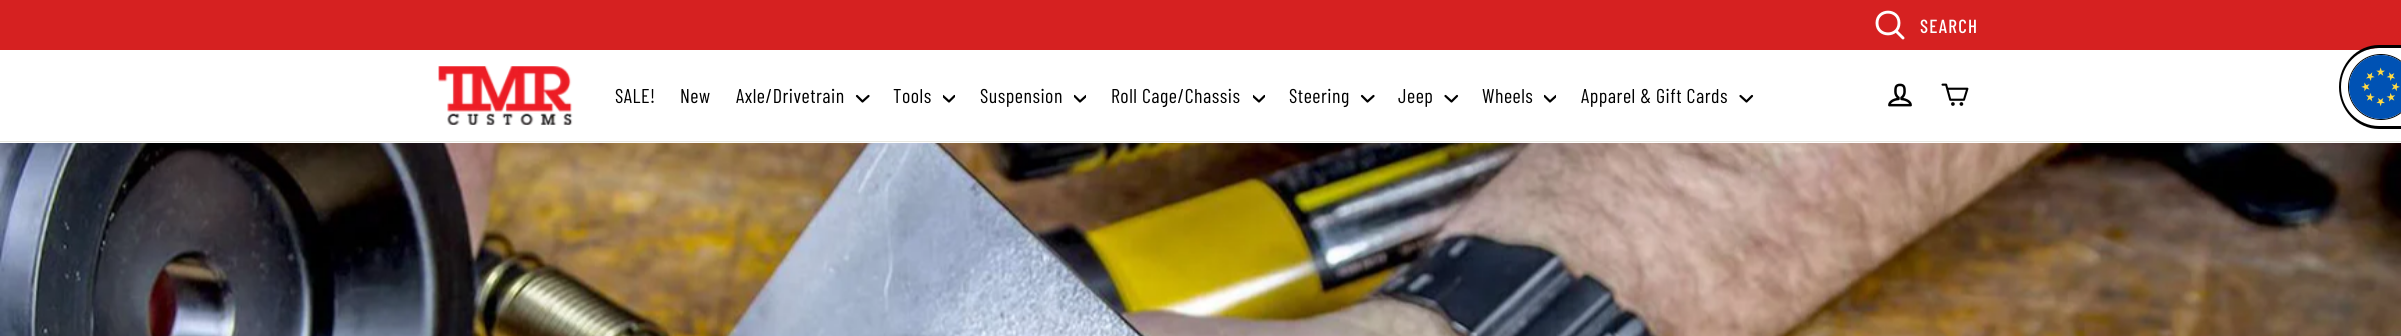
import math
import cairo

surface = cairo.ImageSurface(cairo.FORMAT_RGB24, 2401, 336)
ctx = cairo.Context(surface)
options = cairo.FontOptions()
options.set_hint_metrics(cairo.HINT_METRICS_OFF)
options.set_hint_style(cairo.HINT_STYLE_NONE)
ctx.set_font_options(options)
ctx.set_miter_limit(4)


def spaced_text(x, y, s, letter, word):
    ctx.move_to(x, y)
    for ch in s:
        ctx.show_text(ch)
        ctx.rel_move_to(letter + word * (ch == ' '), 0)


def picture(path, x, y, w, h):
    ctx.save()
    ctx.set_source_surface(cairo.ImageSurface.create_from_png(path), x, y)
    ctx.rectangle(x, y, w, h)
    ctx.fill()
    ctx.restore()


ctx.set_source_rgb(1, 1, 1)
ctx.paint()
ctx.set_source_rgb(0.839, 0.129, 0.129)
ctx.rectangle(0, 0, 2401, 50)
ctx.fill()
ctx.new_path()
ctx.move_to(1899, 23)
ctx.curve_to(1899, 37.5, 1877, 37.5, 1877, 23)
ctx.curve_to(1877, 8.5, 1899, 8.5, 1899, 23)
ctx.close_path()
ctx.move_to(1903, 38)
ctx.line_to(1896, 31)
ctx.set_source_rgb(1, 1, 1)
ctx.set_line_width(2.9)
ctx.set_line_cap(cairo.LINE_CAP_ROUND)
ctx.set_line_join(cairo.LINE_JOIN_ROUND)
ctx.stroke()
ctx.select_font_face("Barlow Condensed Medium")
ctx.set_font_size(19)
spaced_text(1920, 33, "SEARCH", 1.25, 0)
ctx.set_source_rgb(0.91, 0.91, 0.882)
ctx.rectangle(0, 141, 2401, 1)
ctx.fill()
picture("img1.png", 438, 66, 135, 59)
ctx.select_font_face("Barlow Condensed")
ctx.set_font_size(20)
ctx.set_source_rgb(0, 0, 0)
spaced_text(615, 103, "SALE!", 0.5, 0)
spaced_text(680, 103, "New", 0.5, 0)
spaced_text(736, 103, "Axle/Drivetrain", 0.5, 0)
ctx.new_path()
ctx.move_to(857, 96)
ctx.line_to(862.5, 101.5)
ctx.line_to(868.5, 96)
ctx.set_line_width(2.2)
ctx.stroke()
spaced_text(893, 103, "Tools", 0.5, 0)
ctx.save()
ctx.rectangle(943, 93, 12, 12)
ctx.clip()
ctx.new_path()
ctx.move_to(943, 96)
ctx.line_to(949, 101.5)
ctx.line_to(954.5, 96)
ctx.stroke()
ctx.restore()
spaced_text(980, 103, "Suspension", 0.5, 0)
ctx.save()
ctx.rectangle(1074, 93, 12, 12)
ctx.clip()
ctx.new_path()
ctx.move_to(1074.5, 96)
ctx.line_to(1080, 101.5)
ctx.line_to(1086, 96)
ctx.stroke()
ctx.restore()
spaced_text(1111, 103, "Roll Cage/Chassis", 0.5, 0)
ctx.save()
ctx.rectangle(1253, 93, 12, 12)
ctx.clip()
ctx.new_path()
ctx.move_to(1253, 96)
ctx.line_to(1259, 101.5)
ctx.line_to(1264.5, 96)
ctx.stroke()
ctx.restore()
spaced_text(1289, 103, "Steering", 0.5, 0)
ctx.new_path()
ctx.move_to(1362, 96)
ctx.line_to(1367.5, 101.5)
ctx.line_to(1373.5, 96)
ctx.stroke()
spaced_text(1398, 103, "Jeep", 0.5, 0)
ctx.new_path()
ctx.move_to(1445.5, 96)
ctx.line_to(1451.5, 101.5)
ctx.line_to(1457, 96)
ctx.stroke()
spaced_text(1482, 103, "Wheels", 0.5, 0)
ctx.save()
ctx.rectangle(1544, 93, 12, 12)
ctx.clip()
ctx.new_path()
ctx.move_to(1544.5, 96)
ctx.line_to(1550, 101.5)
ctx.line_to(1556, 96)
ctx.stroke()
ctx.restore()
spaced_text(1581, 103, "Apparel & Gift Cards", 0.5, 0)
ctx.new_path()
ctx.move_to(1740.5, 96)
ctx.line_to(1746.5, 101.5)
ctx.line_to(1752, 96)
ctx.stroke()
picture("img2.png", 1888, 83, 24, 24)
picture("img3.png", 1941, 83, 28, 23)
picture("img4.png", 0, 143, 2401, 193)
ctx.set_source_rgb(1, 1, 1)
ctx.new_path()
ctx.move_to(2379, 48)
ctx.line_to(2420, 48)
ctx.line_to(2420, 126)
ctx.line_to(2379, 126)
ctx.curve_to(2358, 126, 2341, 109, 2341, 87)
ctx.curve_to(2341, 65, 2358, 48, 2379, 48)
ctx.close_path()
ctx.fill()
ctx.set_source_rgb(0, 0, 0)
ctx.set_fill_rule(cairo.FILL_RULE_EVEN_ODD)
ctx.new_path()
ctx.move_to(2379, 45)
ctx.line_to(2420, 45)
ctx.line_to(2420, 129)
ctx.line_to(2379, 129)
ctx.curve_to(2357, 129, 2339, 110, 2339, 87)
ctx.curve_to(2339, 64, 2357, 45, 2379, 45)
ctx.close_path()
ctx.move_to(2379, 48)
ctx.line_to(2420, 48)
ctx.line_to(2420, 126)
ctx.line_to(2379, 126)
ctx.curve_to(2358, 126, 2341, 109, 2341, 87)
ctx.curve_to(2341, 65, 2358, 48, 2379, 48)
ctx.close_path()
ctx.fill()
ctx.arc(2381, 87, 32.5, 0, 2 * math.pi)
ctx.set_line_width(1)
ctx.set_line_cap(cairo.LINE_CAP_BUTT)
ctx.set_line_join(cairo.LINE_JOIN_MITER)
ctx.stroke()
picture("img5.png", 2349, 55, 52, 64)
surface.write_to_png("page.png")
